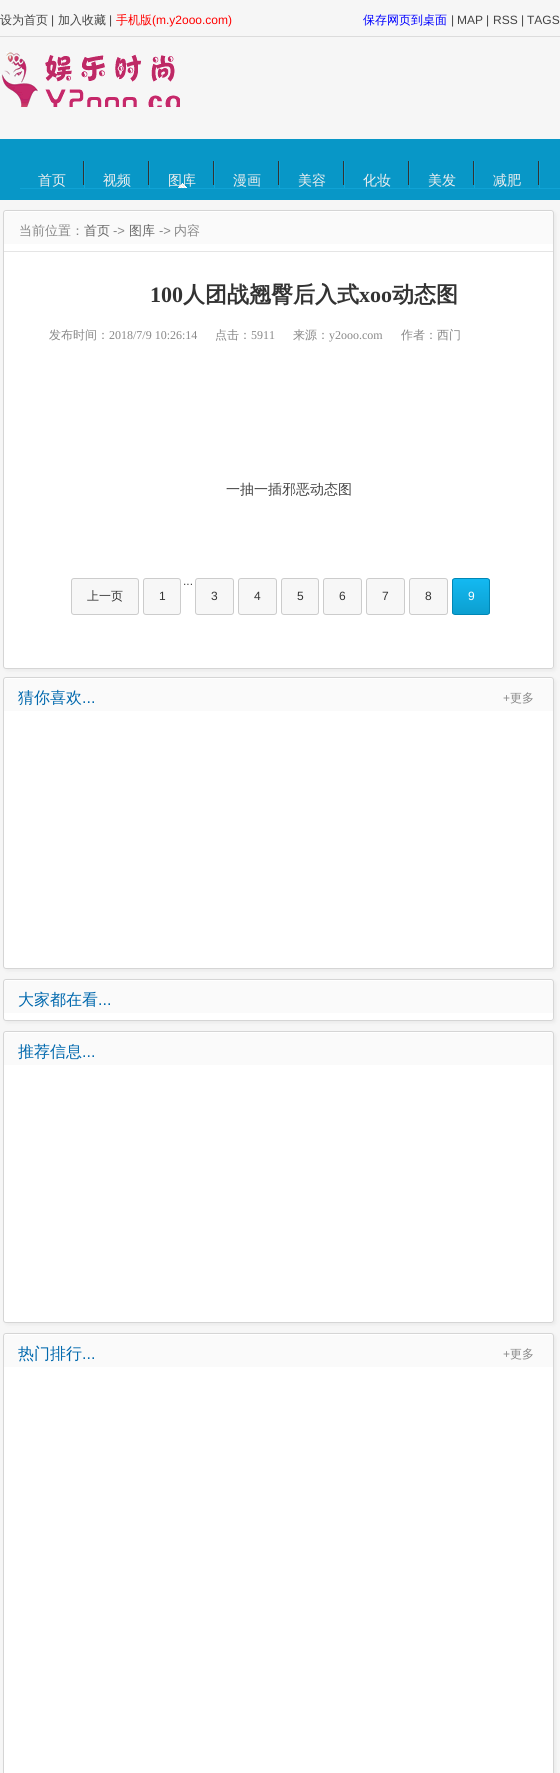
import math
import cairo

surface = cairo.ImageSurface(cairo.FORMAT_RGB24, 560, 1773)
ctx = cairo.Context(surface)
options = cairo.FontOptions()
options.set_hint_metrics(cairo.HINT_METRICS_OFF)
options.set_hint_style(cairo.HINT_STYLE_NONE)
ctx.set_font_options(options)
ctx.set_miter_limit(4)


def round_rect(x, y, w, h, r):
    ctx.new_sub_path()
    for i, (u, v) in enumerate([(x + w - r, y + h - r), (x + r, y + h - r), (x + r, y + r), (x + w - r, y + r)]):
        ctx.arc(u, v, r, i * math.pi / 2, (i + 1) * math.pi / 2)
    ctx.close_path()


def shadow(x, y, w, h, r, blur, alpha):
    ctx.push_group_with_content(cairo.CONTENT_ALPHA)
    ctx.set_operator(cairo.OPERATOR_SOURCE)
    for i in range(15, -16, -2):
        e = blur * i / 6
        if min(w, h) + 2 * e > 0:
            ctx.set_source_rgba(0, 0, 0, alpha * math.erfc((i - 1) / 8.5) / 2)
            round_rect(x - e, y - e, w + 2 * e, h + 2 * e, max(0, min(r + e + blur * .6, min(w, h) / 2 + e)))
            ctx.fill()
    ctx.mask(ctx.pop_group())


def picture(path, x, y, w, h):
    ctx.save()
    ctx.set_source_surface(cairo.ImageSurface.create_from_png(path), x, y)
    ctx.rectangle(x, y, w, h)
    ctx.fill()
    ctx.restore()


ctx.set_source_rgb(0.961, 0.961, 0.961)
ctx.paint()
ctx.set_source_rgb(0.863, 0.863, 0.863)
ctx.rectangle(0, 36, 560, 1)
ctx.fill()
ctx.select_font_face("WenQuanYi Zen Hei Medium")
ctx.set_font_size(12)
ctx.set_source_rgb(0.263, 0.263, 0.263)
ctx.move_to(0, 24)
ctx.show_text("设为首页")
ctx.select_font_face("Liberation Sans")
ctx.move_to(51, 24)
ctx.show_text("|")
ctx.select_font_face("WenQuanYi Zen Hei Medium")
ctx.move_to(58, 24)
ctx.show_text("加入收藏")
ctx.select_font_face("Liberation Sans")
ctx.move_to(109, 24)
ctx.show_text("|")
ctx.select_font_face("WenQuanYi Zen Hei Medium")
ctx.set_source_rgb(1, 0, 0)
ctx.move_to(116, 24)
ctx.show_text("手机版")
ctx.select_font_face("Liberation Sans")
ctx.move_to(152, 24)
ctx.show_text("(m.y2ooo.com)")
ctx.select_font_face("WenQuanYi Zen Hei Medium")
ctx.set_source_rgb(0, 0, 1)
ctx.move_to(363, 24)
ctx.show_text("保存网页到桌面")
ctx.select_font_face("Liberation Sans")
ctx.set_source_rgb(0.263, 0.263, 0.263)
ctx.move_to(451, 24)
ctx.show_text("|")
ctx.move_to(457, 24)
ctx.show_text("MAP")
ctx.move_to(486, 24)
ctx.show_text("|")
ctx.move_to(493, 24)
ctx.show_text("RSS")
ctx.move_to(521, 24)
ctx.show_text("|")
ctx.move_to(527, 24)
ctx.show_text("TAGS")
picture("img1.png", 0, 52, 180, 55)
ctx.set_source_rgb(0.035, 0.592, 0.78)
ctx.rectangle(0, 139, 560, 61)
ctx.fill()
ctx.set_source_rgb(0.2, 0.2, 0.2)
ctx.rectangle(83, 161, 1, 24)
ctx.fill()
ctx.set_source_rgb(0.063, 0.639, 0.835)
ctx.rectangle(84, 161, 1, 28)
ctx.fill()
ctx.rectangle(20, 188, 65, 1)
ctx.fill()
ctx.select_font_face("WenQuanYi Zen Hei Medium")
ctx.set_font_size(14)
ctx.set_source_rgb(0.933, 0.933, 0.933)
ctx.move_to(38, 185)
ctx.show_text("首页")
ctx.set_source_rgb(0.2, 0.2, 0.2)
ctx.rectangle(148, 161, 1, 24)
ctx.fill()
ctx.set_source_rgb(0.063, 0.639, 0.835)
ctx.rectangle(149, 161, 1, 28)
ctx.fill()
ctx.rectangle(85, 188, 65, 1)
ctx.fill()
ctx.set_source_rgb(0.933, 0.933, 0.933)
ctx.move_to(103, 185)
ctx.show_text("视频")
ctx.set_source_rgb(0.2, 0.2, 0.2)
ctx.rectangle(213, 161, 1, 24)
ctx.fill()
ctx.set_source_rgb(0.063, 0.639, 0.835)
ctx.rectangle(214, 161, 1, 28)
ctx.fill()
ctx.rectangle(150, 188, 65, 1)
ctx.fill()
picture("img2.png", 178, 183, 9, 5)
ctx.set_source_rgb(0.933, 0.933, 0.933)
ctx.move_to(168, 185)
ctx.show_text("图库")
ctx.set_source_rgb(0.2, 0.2, 0.2)
ctx.rectangle(278, 161, 1, 24)
ctx.fill()
ctx.set_source_rgb(0.063, 0.639, 0.835)
ctx.rectangle(279, 161, 1, 28)
ctx.fill()
ctx.rectangle(215, 188, 65, 1)
ctx.fill()
ctx.set_source_rgb(0.933, 0.933, 0.933)
ctx.move_to(233, 185)
ctx.show_text("漫画")
ctx.set_source_rgb(0.2, 0.2, 0.2)
ctx.rectangle(343, 161, 1, 24)
ctx.fill()
ctx.set_source_rgb(0.063, 0.639, 0.835)
ctx.rectangle(344, 161, 1, 28)
ctx.fill()
ctx.rectangle(280, 188, 65, 1)
ctx.fill()
ctx.set_source_rgb(0.933, 0.933, 0.933)
ctx.move_to(298, 185)
ctx.show_text("美容")
ctx.set_source_rgb(0.2, 0.2, 0.2)
ctx.rectangle(408, 161, 1, 24)
ctx.fill()
ctx.set_source_rgb(0.063, 0.639, 0.835)
ctx.rectangle(409, 161, 1, 28)
ctx.fill()
ctx.rectangle(345, 188, 65, 1)
ctx.fill()
ctx.set_source_rgb(0.933, 0.933, 0.933)
ctx.move_to(363, 185)
ctx.show_text("化妆")
ctx.set_source_rgb(0.2, 0.2, 0.2)
ctx.rectangle(473, 161, 1, 24)
ctx.fill()
ctx.set_source_rgb(0.063, 0.639, 0.835)
ctx.rectangle(474, 161, 1, 28)
ctx.fill()
ctx.rectangle(410, 188, 65, 1)
ctx.fill()
ctx.set_source_rgb(0.933, 0.933, 0.933)
ctx.move_to(428, 185)
ctx.show_text("美发")
ctx.set_source_rgb(0.2, 0.2, 0.2)
ctx.rectangle(538, 161, 1, 24)
ctx.fill()
ctx.set_source_rgb(0.063, 0.639, 0.835)
ctx.rectangle(539, 161, 1, 28)
ctx.fill()
ctx.rectangle(475, 188, 85, 1)
ctx.fill()
ctx.set_source_rgb(0.933, 0.933, 0.933)
ctx.move_to(493, 185)
ctx.show_text("减肥")
ctx.set_source_rgb(0.918, 0.918, 0.918)
shadow(5, 212, 551, 459, 3, 1.5, 1)
ctx.set_source_rgb(1, 1, 1)
round_rect(3, 210, 551, 459, 3)
ctx.fill()
ctx.set_source_rgb(0.98, 0.98, 0.98)
ctx.rectangle(3, 212, 551, 32)
ctx.fill()
round_rect(3.5, 210.5, 550, 458, 2.5)
ctx.set_source_rgb(0.835, 0.835, 0.835)
ctx.set_line_width(1)
ctx.stroke()
ctx.set_source_rgb(0.898, 0.898, 0.898)
ctx.rectangle(4, 251, 549, 1)
ctx.fill()
ctx.set_font_size(13)
ctx.set_source_rgb(0.533, 0.533, 0.533)
ctx.move_to(19, 235)
ctx.show_text("当前位置：")
ctx.set_source_rgb(0.4, 0.4, 0.4)
ctx.move_to(84, 235)
ctx.show_text("首页")
ctx.select_font_face("Liberation Sans")
ctx.set_source_rgb(0.533, 0.533, 0.533)
ctx.move_to(113, 235)
ctx.show_text("->")
ctx.select_font_face("WenQuanYi Zen Hei Medium")
ctx.set_source_rgb(0.4, 0.4, 0.4)
ctx.move_to(129, 235)
ctx.show_text("图库")
ctx.select_font_face("Liberation Sans")
ctx.set_source_rgb(0.533, 0.533, 0.533)
ctx.move_to(159, 235)
ctx.show_text("->")
ctx.select_font_face("WenQuanYi Zen Hei Medium")
ctx.move_to(174, 235)
ctx.show_text("内容")
ctx.select_font_face("Liberation Serif", cairo.FONT_SLANT_NORMAL, cairo.FONT_WEIGHT_BOLD)
ctx.set_font_size(22)
ctx.set_source_rgb(0.2, 0.2, 0.2)
ctx.move_to(150, 302)
ctx.show_text("100")
ctx.select_font_face("WenQuanYi Zen Hei", cairo.FONT_SLANT_NORMAL, cairo.FONT_WEIGHT_BOLD)
ctx.move_to(183, 302)
ctx.show_text("人团战翘臀后入式")
ctx.select_font_face("Liberation Serif", cairo.FONT_SLANT_NORMAL, cairo.FONT_WEIGHT_BOLD)
ctx.move_to(359, 302)
ctx.show_text("xoo")
ctx.select_font_face("WenQuanYi Zen Hei", cairo.FONT_SLANT_NORMAL, cairo.FONT_WEIGHT_BOLD)
ctx.move_to(392, 302)
ctx.show_text("动态图")
ctx.select_font_face("WenQuanYi Zen Hei Medium")
ctx.set_font_size(12)
ctx.set_source_rgb(0.533, 0.533, 0.533)
ctx.move_to(49, 339)
ctx.show_text("发布时间：")
ctx.select_font_face("Liberation Serif")
ctx.move_to(109, 339)
ctx.show_text("2018/7/9 10:26:14")
ctx.select_font_face("WenQuanYi Zen Hei Medium")
ctx.move_to(215, 339)
ctx.show_text("点击：")
ctx.select_font_face("Liberation Serif")
ctx.move_to(251, 339)
ctx.show_text("5911")
ctx.select_font_face("WenQuanYi Zen Hei Medium")
ctx.move_to(293, 339)
ctx.show_text("来源：")
ctx.select_font_face("Liberation Serif")
ctx.move_to(329, 339)
ctx.show_text("y2ooo.com")
ctx.select_font_face("WenQuanYi Zen Hei Medium")
ctx.move_to(401, 339)
ctx.show_text("作者：西门")
ctx.set_font_size(14)
ctx.set_source_rgb(0.263, 0.263, 0.263)
ctx.move_to(226, 494)
ctx.show_text("一抽一插邪恶动态图")
ctx.select_font_face("Liberation Sans")
ctx.set_font_size(12)
ctx.move_to(183, 585)
ctx.show_text("...")
ctx.set_source_rgb(0.965, 0.965, 0.965)
round_rect(71.5, 578.5, 67, 36, 2.5)
ctx.fill_preserve()
ctx.set_source_rgb(0.8, 0.8, 0.8)
ctx.stroke()
ctx.select_font_face("WenQuanYi Zen Hei Medium")
ctx.set_source_rgb(0.2, 0.2, 0.2)
ctx.move_to(87, 600)
ctx.show_text("上一页")
ctx.set_source_rgb(0.965, 0.965, 0.965)
round_rect(143.5, 578.5, 37, 36, 2.5)
ctx.fill_preserve()
ctx.set_source_rgb(0.8, 0.8, 0.8)
ctx.stroke()
ctx.select_font_face("Liberation Sans")
ctx.set_source_rgb(0.2, 0.2, 0.2)
ctx.move_to(159, 600)
ctx.show_text("1")
ctx.set_source_rgb(0.965, 0.965, 0.965)
round_rect(195.5, 578.5, 38, 36, 2.5)
ctx.fill_preserve()
ctx.set_source_rgb(0.8, 0.8, 0.8)
ctx.stroke()
ctx.set_source_rgb(0.2, 0.2, 0.2)
ctx.move_to(211, 600)
ctx.show_text("3")
ctx.set_source_rgb(0.965, 0.965, 0.965)
round_rect(238.5, 578.5, 38, 36, 2.5)
ctx.fill_preserve()
ctx.set_source_rgb(0.8, 0.8, 0.8)
ctx.stroke()
ctx.set_source_rgb(0.2, 0.2, 0.2)
ctx.move_to(254, 600)
ctx.show_text("4")
ctx.set_source_rgb(0.965, 0.965, 0.965)
round_rect(281.5, 578.5, 37, 36, 2.5)
ctx.fill_preserve()
ctx.set_source_rgb(0.8, 0.8, 0.8)
ctx.stroke()
ctx.set_source_rgb(0.2, 0.2, 0.2)
ctx.move_to(297, 600)
ctx.show_text("5")
ctx.set_source_rgb(0.965, 0.965, 0.965)
round_rect(323.5, 578.5, 38, 36, 2.5)
ctx.fill_preserve()
ctx.set_source_rgb(0.8, 0.8, 0.8)
ctx.stroke()
ctx.set_source_rgb(0.2, 0.2, 0.2)
ctx.move_to(339, 600)
ctx.show_text("6")
ctx.set_source_rgb(0.965, 0.965, 0.965)
round_rect(366.5, 578.5, 38, 36, 2.5)
ctx.fill_preserve()
ctx.set_source_rgb(0.8, 0.8, 0.8)
ctx.stroke()
ctx.set_source_rgb(0.2, 0.2, 0.2)
ctx.move_to(382, 600)
ctx.show_text("7")
ctx.set_source_rgb(0.965, 0.965, 0.965)
round_rect(409.5, 578.5, 38, 36, 2.5)
ctx.fill_preserve()
ctx.set_source_rgb(0.8, 0.8, 0.8)
ctx.stroke()
ctx.set_source_rgb(0.2, 0.2, 0.2)
ctx.move_to(425, 600)
ctx.show_text("8")
ctx.save()
round_rect(452, 578, 38, 37, 3)
ctx.clip()
gradient = cairo.LinearGradient(453, 579, 453, 614)
gradient.add_color_stop_rgba(0, 0.075, 0.725, 0.945, 1)
gradient.add_color_stop_rgba(1, 0.047, 0.624, 0.816, 1)
ctx.set_source(gradient)
ctx.rectangle(452, 579, 38, 35)
ctx.fill()
ctx.restore()
round_rect(452.5, 578.5, 37, 36, 2.5)
ctx.set_source_rgb(0, 0.529, 0.71)
ctx.stroke()
ctx.set_source_rgb(1, 1, 1)
ctx.move_to(468, 600)
ctx.show_text("9")
ctx.set_source_rgb(0.918, 0.918, 0.918)
shadow(5, 679, 551, 292, 3, 1.5, 1)
ctx.set_source_rgb(1, 1, 1)
round_rect(3, 677, 551, 292, 3)
ctx.fill()
ctx.set_source_rgb(0.98, 0.98, 0.98)
ctx.rectangle(3, 679, 551, 32)
ctx.fill()
round_rect(3.5, 677.5, 550, 291, 2.5)
ctx.set_source_rgb(0.835, 0.835, 0.835)
ctx.stroke()
ctx.select_font_face("WenQuanYi Zen Hei Medium")
ctx.set_font_size(16)
ctx.set_source_rgb(0, 0.408, 0.678)
ctx.move_to(18, 703)
ctx.show_text("猜你喜欢")
ctx.select_font_face("Liberation Sans")
ctx.move_to(82, 703)
ctx.show_text("...")
ctx.set_font_size(12)
ctx.set_source_rgb(0.533, 0.533, 0.533)
ctx.move_to(503, 702)
ctx.show_text("+")
ctx.select_font_face("WenQuanYi Zen Hei Medium")
ctx.move_to(510, 702)
ctx.show_text("更多")
ctx.set_source_rgb(0.918, 0.918, 0.918)
shadow(5, 981, 551, 42, 3, 1.5, 1)
ctx.set_source_rgb(1, 1, 1)
round_rect(3, 979, 551, 42, 3)
ctx.fill()
ctx.set_source_rgb(0.98, 0.98, 0.98)
ctx.rectangle(3, 981, 551, 32)
ctx.fill()
round_rect(3.5, 979.5, 550, 41, 2.5)
ctx.set_source_rgb(0.835, 0.835, 0.835)
ctx.stroke()
ctx.set_font_size(16)
ctx.set_source_rgb(0, 0.408, 0.678)
ctx.move_to(18, 1005)
ctx.show_text("大家都在看")
ctx.select_font_face("Liberation Sans")
ctx.move_to(98, 1005)
ctx.show_text("...")
ctx.set_source_rgb(0.918, 0.918, 0.918)
shadow(5, 1033, 551, 292, 3, 1.5, 1)
ctx.set_source_rgb(1, 1, 1)
round_rect(3, 1031, 551, 292, 3)
ctx.fill()
ctx.set_source_rgb(0.98, 0.98, 0.98)
ctx.rectangle(3, 1033, 551, 32)
ctx.fill()
round_rect(3.5, 1031.5, 550, 291, 2.5)
ctx.set_source_rgb(0.835, 0.835, 0.835)
ctx.stroke()
ctx.select_font_face("WenQuanYi Zen Hei Medium")
ctx.set_source_rgb(0, 0.408, 0.678)
ctx.move_to(18, 1057)
ctx.show_text("推荐信息")
ctx.select_font_face("Liberation Sans")
ctx.move_to(82, 1057)
ctx.show_text("...")
ctx.set_source_rgb(0.918, 0.918, 0.918)
shadow(5, 1335, 551, 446, 3, 1.5, 1)
ctx.set_source_rgb(1, 1, 1)
round_rect(3, 1333, 551, 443, 3)
ctx.fill()
ctx.set_source_rgb(0.98, 0.98, 0.98)
ctx.rectangle(3, 1335, 551, 32)
ctx.fill()
round_rect(3.5, 1333.5, 550, 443, 2.5)
ctx.set_source_rgb(0.835, 0.835, 0.835)
ctx.stroke()
ctx.select_font_face("WenQuanYi Zen Hei Medium")
ctx.set_source_rgb(0, 0.408, 0.678)
ctx.move_to(18, 1359)
ctx.show_text("热门排行")
ctx.select_font_face("Liberation Sans")
ctx.move_to(82, 1359)
ctx.show_text("...")
ctx.set_font_size(12)
ctx.set_source_rgb(0.533, 0.533, 0.533)
ctx.move_to(503, 1358)
ctx.show_text("+")
ctx.select_font_face("WenQuanYi Zen Hei Medium")
ctx.move_to(510, 1358)
ctx.show_text("更多")
surface.write_to_png("page.png")
